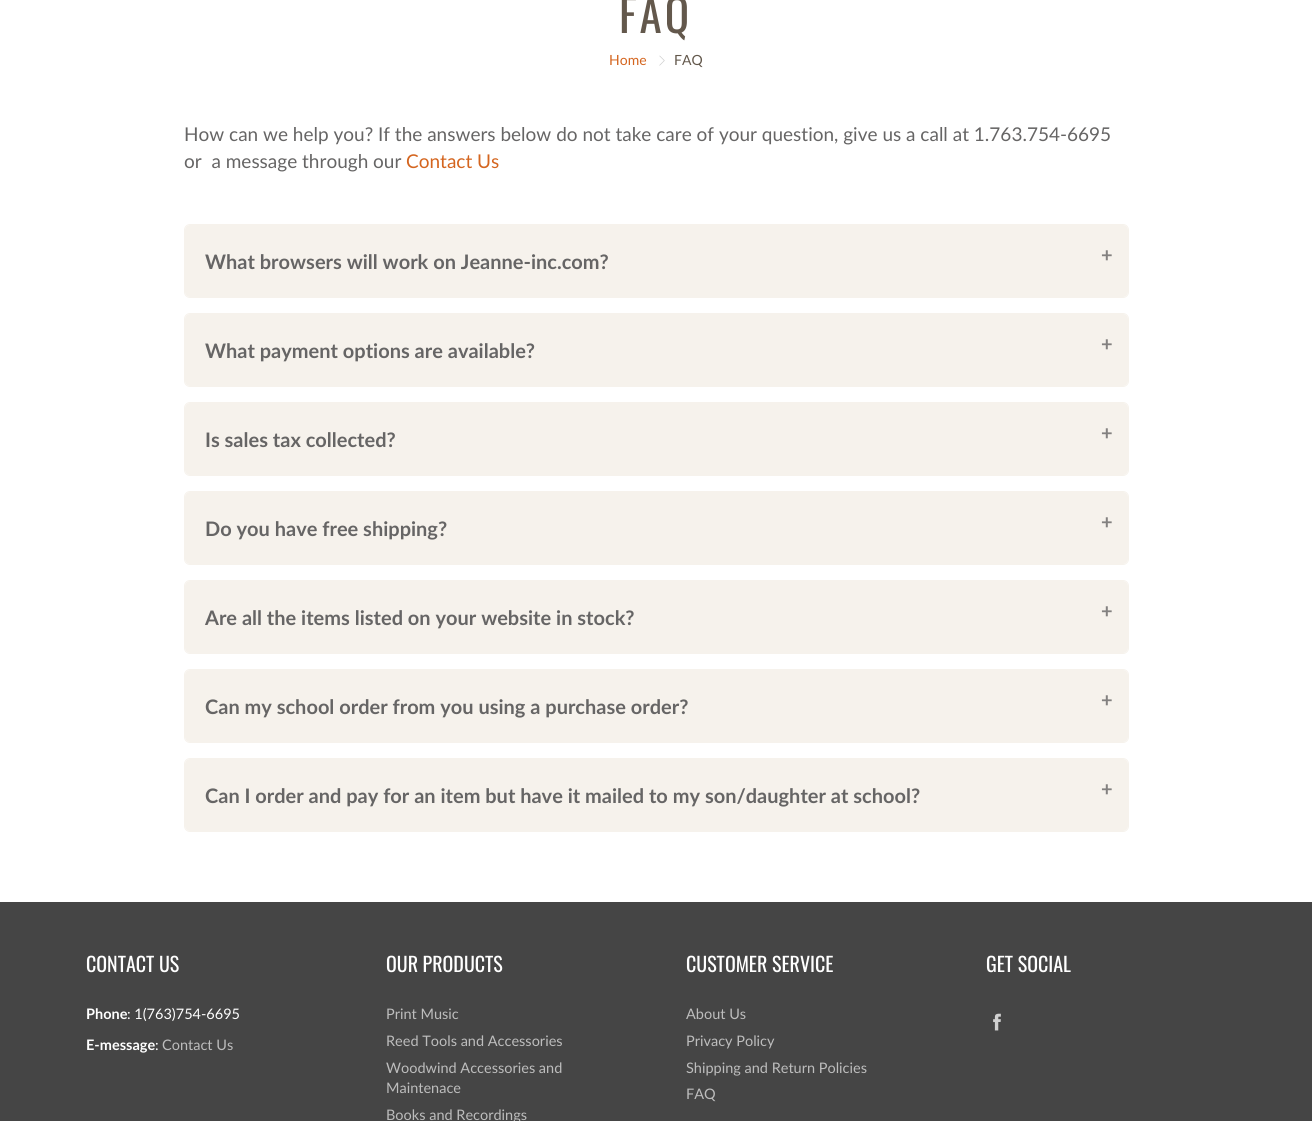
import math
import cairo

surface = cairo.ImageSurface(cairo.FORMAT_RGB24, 1312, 1121)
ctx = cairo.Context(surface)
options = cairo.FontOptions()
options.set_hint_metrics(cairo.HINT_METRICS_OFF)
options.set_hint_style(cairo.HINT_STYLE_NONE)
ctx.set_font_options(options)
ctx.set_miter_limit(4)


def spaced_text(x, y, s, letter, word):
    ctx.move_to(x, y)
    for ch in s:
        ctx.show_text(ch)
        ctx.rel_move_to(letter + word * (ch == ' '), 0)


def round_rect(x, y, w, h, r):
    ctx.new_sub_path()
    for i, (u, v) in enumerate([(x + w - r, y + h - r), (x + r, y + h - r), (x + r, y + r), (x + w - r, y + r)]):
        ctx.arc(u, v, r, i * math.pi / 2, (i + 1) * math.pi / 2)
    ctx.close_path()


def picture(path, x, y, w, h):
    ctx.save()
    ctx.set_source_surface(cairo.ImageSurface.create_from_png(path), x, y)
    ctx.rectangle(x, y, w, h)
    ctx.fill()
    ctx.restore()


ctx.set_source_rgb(1, 1, 1)
ctx.paint()
ctx.select_font_face("Oswald")
ctx.set_font_size(45)
ctx.set_source_rgb(0.388, 0.345, 0.298)
spaced_text(619, 33, "FAQ", 3, 0)
ctx.select_font_face("Lato")
ctx.set_font_size(14)
ctx.set_source_rgb(0.831, 0.396, 0.122)
ctx.move_to(609, 65)
ctx.show_text("Home")
picture("img1.png", 659, 55, 6, 11)
ctx.set_source_rgb(0.388, 0.345, 0.298)
ctx.move_to(674, 65)
ctx.show_text("FAQ")
ctx.set_font_size(19)
ctx.set_source_rgb(0.4, 0.396, 0.396)
ctx.move_to(184, 141)
ctx.show_text("How can we help you? If the answers below do not take care of your question, give us a call at 1.763.754-6695")
ctx.move_to(184, 168)
ctx.show_text("or  a message through our")
ctx.set_source_rgb(0.831, 0.396, 0.122)
ctx.move_to(406, 168)
ctx.show_text("Contact Us")
round_rect(184.5, 224.5, 944, 73, 5.5)
ctx.set_source_rgb(0.961, 0.949, 0.922)
ctx.set_line_width(1)
ctx.stroke()
round_rect(185, 225, 943, 72, 5)
ctx.fill()
ctx.select_font_face("Lato", cairo.FONT_SLANT_NORMAL, cairo.FONT_WEIGHT_BOLD)
ctx.set_font_size(20)
ctx.set_source_rgb(0.4, 0.396, 0.396)
ctx.move_to(205, 269)
ctx.show_text("What browsers will work on Jeanne-inc.com?")
ctx.set_source_rgb(0.514, 0.506, 0.502)
ctx.move_to(1101, 262)
ctx.show_text("+")
round_rect(184.5, 313.5, 944, 73, 5.5)
ctx.set_source_rgb(0.961, 0.949, 0.922)
ctx.stroke()
round_rect(185, 314, 943, 72, 5)
ctx.fill()
ctx.set_source_rgb(0.4, 0.396, 0.396)
ctx.move_to(205, 358)
ctx.show_text("What payment options are available?")
ctx.set_source_rgb(0.514, 0.506, 0.502)
ctx.move_to(1101, 351)
ctx.show_text("+")
round_rect(184.5, 402.5, 944, 73, 5.5)
ctx.set_source_rgb(0.961, 0.949, 0.922)
ctx.stroke()
round_rect(185, 403, 943, 72, 5)
ctx.fill()
ctx.set_source_rgb(0.4, 0.396, 0.396)
ctx.move_to(205, 447)
ctx.show_text("Is sales tax collected?")
ctx.set_source_rgb(0.514, 0.506, 0.502)
ctx.move_to(1101, 440)
ctx.show_text("+")
round_rect(184.5, 491.5, 944, 73, 5.5)
ctx.set_source_rgb(0.961, 0.949, 0.922)
ctx.stroke()
round_rect(185, 492, 943, 72, 5)
ctx.fill()
ctx.set_source_rgb(0.4, 0.396, 0.396)
ctx.move_to(205, 536)
ctx.show_text("Do you have free shipping?")
ctx.set_source_rgb(0.514, 0.506, 0.502)
ctx.move_to(1101, 529)
ctx.show_text("+")
round_rect(184.5, 580.5, 944, 73, 5.5)
ctx.set_source_rgb(0.961, 0.949, 0.922)
ctx.stroke()
round_rect(185, 581, 943, 72, 5)
ctx.fill()
ctx.set_source_rgb(0.4, 0.396, 0.396)
ctx.move_to(205, 625)
ctx.show_text("Are all the items listed on your website in stock?")
ctx.set_source_rgb(0.514, 0.506, 0.502)
ctx.move_to(1101, 618)
ctx.show_text("+")
round_rect(184.5, 669.5, 944, 73, 5.5)
ctx.set_source_rgb(0.961, 0.949, 0.922)
ctx.stroke()
round_rect(185, 670, 943, 72, 5)
ctx.fill()
ctx.set_source_rgb(0.4, 0.396, 0.396)
ctx.move_to(205, 714)
ctx.show_text("Can my school order from you using a purchase order?")
ctx.set_source_rgb(0.514, 0.506, 0.502)
ctx.move_to(1101, 707)
ctx.show_text("+")
round_rect(184.5, 758.5, 944, 73, 5.5)
ctx.set_source_rgb(0.961, 0.949, 0.922)
ctx.stroke()
round_rect(185, 759, 943, 72, 5)
ctx.fill()
ctx.set_source_rgb(0.4, 0.396, 0.396)
ctx.move_to(205, 803)
ctx.show_text("Can I order and pay for an item but have it mailed to my son/daughter at school?")
ctx.set_source_rgb(0.514, 0.506, 0.502)
ctx.move_to(1101, 796)
ctx.show_text("+")
ctx.set_source_rgb(0.271, 0.271, 0.271)
ctx.rectangle(0, 902, 1312, 219)
ctx.fill()
ctx.select_font_face("Oswald")
ctx.set_source_rgb(1, 1, 1)
ctx.move_to(86, 972)
ctx.show_text("CONTACT US")
ctx.select_font_face("Lato", cairo.FONT_SLANT_NORMAL, cairo.FONT_WEIGHT_BOLD)
ctx.set_font_size(14.5)
ctx.move_to(86, 1019)
ctx.show_text("Phone")
ctx.select_font_face("Lato")
ctx.move_to(127, 1019)
ctx.show_text(": 1(763)754-6695")
ctx.select_font_face("Lato", cairo.FONT_SLANT_NORMAL, cairo.FONT_WEIGHT_BOLD)
ctx.move_to(86, 1050)
ctx.show_text("E-message")
ctx.select_font_face("Lato")
ctx.move_to(155, 1050)
ctx.show_text(":")
ctx.set_source_rgb(0.741, 0.741, 0.741)
ctx.move_to(162, 1050)
ctx.show_text("Contact Us")
ctx.select_font_face("Oswald")
ctx.set_font_size(20)
ctx.set_source_rgb(1, 1, 1)
ctx.move_to(386, 972)
ctx.show_text("OUR PRODUCTS")
ctx.select_font_face("Lato")
ctx.set_font_size(14.5)
ctx.set_source_rgb(0.741, 0.741, 0.741)
ctx.move_to(386, 1019)
ctx.show_text("Print Music")
ctx.move_to(386, 1046)
ctx.show_text("Reed Tools and Accessories")
ctx.move_to(386, 1073)
ctx.show_text("Woodwind Accessories and")
ctx.move_to(386, 1093)
ctx.show_text("Maintenace")
ctx.move_to(386, 1120)
ctx.show_text("Books and Recordings")
ctx.select_font_face("Oswald")
ctx.set_font_size(20)
ctx.set_source_rgb(1, 1, 1)
ctx.move_to(686, 972)
ctx.show_text("CUSTOMER SERVICE")
ctx.select_font_face("Lato")
ctx.set_font_size(14.5)
ctx.set_source_rgb(0.741, 0.741, 0.741)
ctx.move_to(686, 1019)
ctx.show_text("About Us")
ctx.move_to(686, 1046)
ctx.show_text("Privacy Policy")
ctx.move_to(686, 1073)
ctx.show_text("Shipping and Return Policies")
ctx.move_to(686, 1099)
ctx.show_text("FAQ")
ctx.select_font_face("Oswald")
ctx.set_font_size(20)
ctx.set_source_rgb(1, 1, 1)
ctx.move_to(986, 972)
ctx.show_text("GET SOCIAL")
picture("img2.png", 993, 1013, 8, 18)
surface.write_to_png("page.png")
